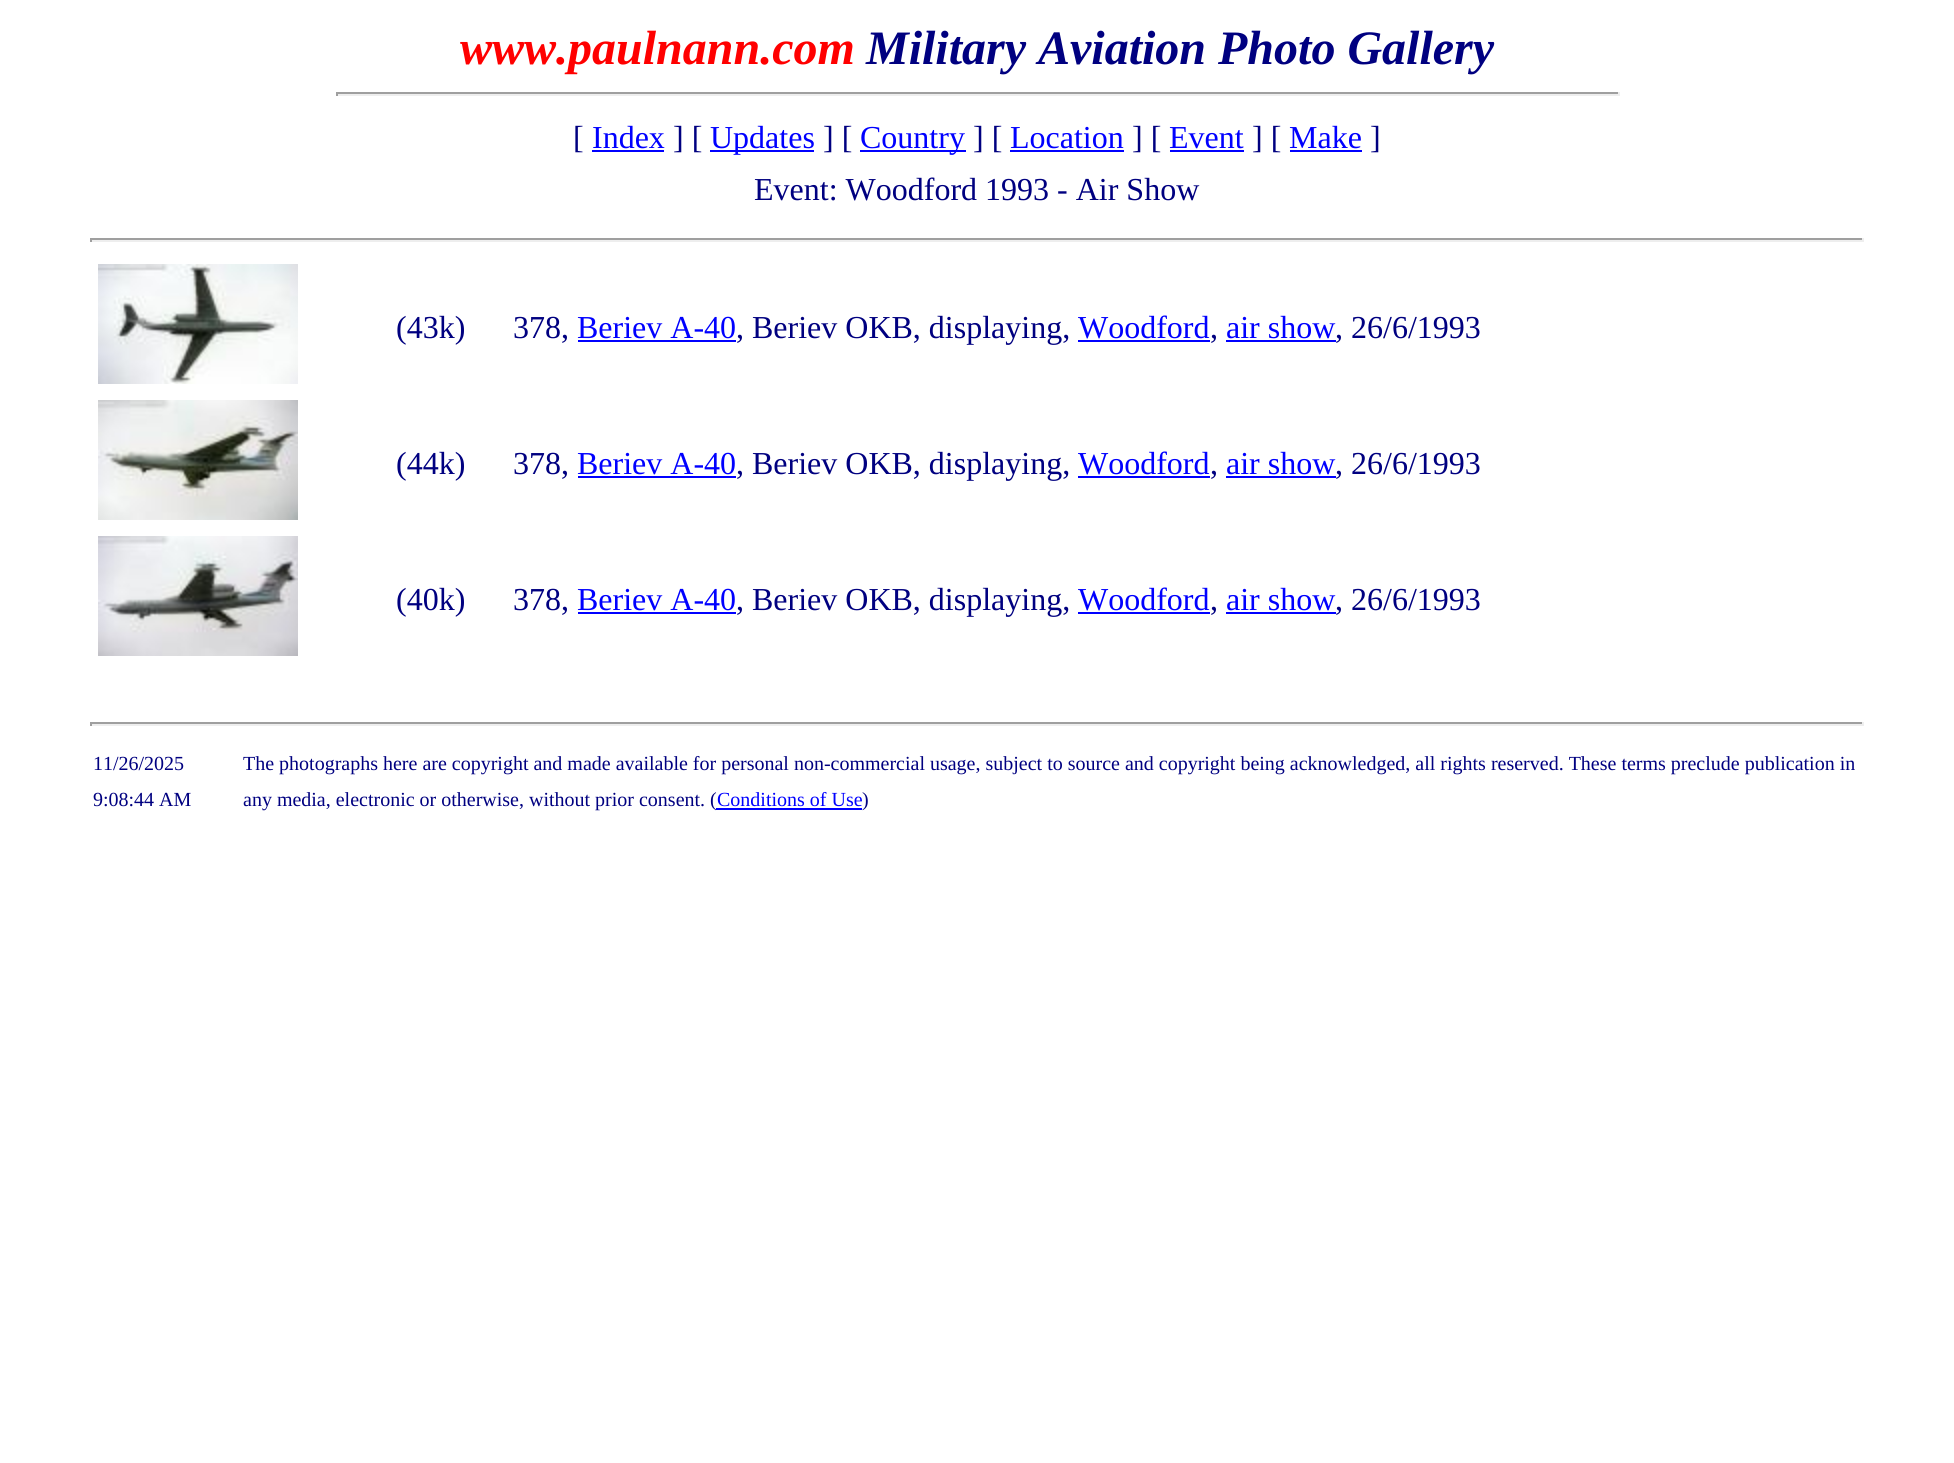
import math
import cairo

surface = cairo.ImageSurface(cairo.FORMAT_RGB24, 1954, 1463)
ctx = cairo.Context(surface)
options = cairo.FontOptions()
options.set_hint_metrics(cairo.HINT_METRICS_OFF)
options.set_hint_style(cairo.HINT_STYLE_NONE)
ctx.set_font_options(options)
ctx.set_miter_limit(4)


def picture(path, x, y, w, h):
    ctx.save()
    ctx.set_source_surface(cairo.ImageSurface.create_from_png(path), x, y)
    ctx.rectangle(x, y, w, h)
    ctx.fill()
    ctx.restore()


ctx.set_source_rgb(1, 1, 1)
ctx.paint()
ctx.select_font_face("Liberation Serif", cairo.FONT_SLANT_ITALIC, cairo.FONT_WEIGHT_BOLD)
ctx.set_font_size(48)
ctx.set_source_rgb(1, 0, 0)
ctx.move_to(460, 64)
ctx.show_text("www.paulnann.com")
ctx.set_source_rgb(0, 0, 0.502)
ctx.move_to(866, 64)
ctx.show_text("Military Aviation Photo Gallery")
ctx.set_source_rgb(0.624, 0.624, 0.624)
ctx.rectangle(336, 92, 1284, 2)
ctx.fill()
ctx.set_source_rgb(0.933, 0.933, 0.933)
ctx.rectangle(1618, 92, 2, 4)
ctx.fill()
ctx.rectangle(336, 94, 1284, 2)
ctx.fill()
ctx.set_source_rgb(0.624, 0.624, 0.624)
ctx.rectangle(336, 92, 2, 4)
ctx.fill()
ctx.select_font_face("Liberation Serif")
ctx.set_font_size(32)
ctx.set_source_rgb(0, 0, 0.502)
ctx.move_to(573, 148)
ctx.show_text("[")
ctx.set_source_rgb(0, 0, 1)
ctx.move_to(592, 148)
ctx.show_text("Index")
ctx.rectangle(592, 150, 72, 2)
ctx.fill()
ctx.set_source_rgb(0, 0, 0.502)
ctx.move_to(673, 148)
ctx.show_text("] [")
ctx.set_source_rgb(0, 0, 1)
ctx.rectangle(710, 150, 104, 2)
ctx.fill()
ctx.move_to(710, 148)
ctx.show_text("Updates")
ctx.set_source_rgb(0, 0, 0.502)
ctx.move_to(823, 148)
ctx.show_text("] [")
ctx.set_source_rgb(0, 0, 1)
ctx.rectangle(860, 150, 106, 2)
ctx.fill()
ctx.move_to(860, 148)
ctx.show_text("Country")
ctx.set_source_rgb(0, 0, 0.502)
ctx.move_to(973, 148)
ctx.show_text("] [")
ctx.set_source_rgb(0, 0, 1)
ctx.move_to(1010, 148)
ctx.show_text("Location")
ctx.rectangle(1010, 150, 114, 2)
ctx.fill()
ctx.set_source_rgb(0, 0, 0.502)
ctx.move_to(1132, 148)
ctx.show_text("] [")
ctx.set_source_rgb(0, 0, 1)
ctx.move_to(1169, 148)
ctx.show_text("Event")
ctx.rectangle(1170, 150, 74, 2)
ctx.fill()
ctx.set_source_rgb(0, 0, 0.502)
ctx.move_to(1252, 148)
ctx.show_text("] [")
ctx.set_source_rgb(0, 0, 1)
ctx.move_to(1289, 148)
ctx.show_text("Make")
ctx.rectangle(1290, 150, 72, 2)
ctx.fill()
ctx.set_source_rgb(0, 0, 0.502)
ctx.move_to(1370, 148)
ctx.show_text("]")
ctx.move_to(754, 200)
ctx.show_text("Event: Woodford 1993 - Air Show")
ctx.set_source_rgb(0.624, 0.624, 0.624)
ctx.rectangle(90, 238, 1774, 2)
ctx.fill()
ctx.set_source_rgb(0.933, 0.933, 0.933)
ctx.rectangle(1862, 238, 2, 4)
ctx.fill()
ctx.rectangle(90, 240, 1774, 2)
ctx.fill()
ctx.set_source_rgb(0.624, 0.624, 0.624)
ctx.rectangle(90, 238, 2, 4)
ctx.fill()
picture("img1.png", 98, 264, 200, 120)
ctx.set_source_rgb(0, 0, 0.502)
ctx.move_to(396, 338)
ctx.show_text("(43k)")
ctx.move_to(513, 338)
ctx.show_text("378,")
ctx.set_source_rgb(0, 0, 1)
ctx.move_to(577, 338)
ctx.show_text("Beriev A-40")
ctx.rectangle(578, 340, 158, 2)
ctx.fill()
ctx.set_source_rgb(0, 0, 0.502)
ctx.move_to(736, 338)
ctx.show_text(", Beriev OKB, displaying,")
ctx.set_source_rgb(0, 0, 1)
ctx.move_to(1078, 338)
ctx.show_text("Woodford")
ctx.rectangle(1078, 340, 132, 2)
ctx.fill()
ctx.set_source_rgb(0, 0, 0.502)
ctx.move_to(1210, 338)
ctx.show_text(",")
ctx.set_source_rgb(0, 0, 1)
ctx.move_to(1226, 338)
ctx.show_text("air show")
ctx.rectangle(1226, 340, 110, 2)
ctx.fill()
ctx.set_source_rgb(0, 0, 0.502)
ctx.move_to(1335, 338)
ctx.show_text(", 26/6/1993")
picture("img2.png", 98, 400, 200, 120)
ctx.move_to(396, 474)
ctx.show_text("(44k)")
ctx.move_to(513, 474)
ctx.show_text("378,")
ctx.set_source_rgb(0, 0, 1)
ctx.move_to(577, 474)
ctx.show_text("Beriev A-40")
ctx.rectangle(578, 476, 158, 2)
ctx.fill()
ctx.set_source_rgb(0, 0, 0.502)
ctx.move_to(736, 474)
ctx.show_text(", Beriev OKB, displaying,")
ctx.set_source_rgb(0, 0, 1)
ctx.move_to(1078, 474)
ctx.show_text("Woodford")
ctx.rectangle(1078, 476, 132, 2)
ctx.fill()
ctx.set_source_rgb(0, 0, 0.502)
ctx.move_to(1210, 474)
ctx.show_text(",")
ctx.set_source_rgb(0, 0, 1)
ctx.move_to(1226, 474)
ctx.show_text("air show")
ctx.rectangle(1226, 476, 110, 2)
ctx.fill()
ctx.set_source_rgb(0, 0, 0.502)
ctx.move_to(1335, 474)
ctx.show_text(", 26/6/1993")
picture("img3.png", 98, 536, 200, 120)
ctx.move_to(396, 610)
ctx.show_text("(40k)")
ctx.move_to(513, 610)
ctx.show_text("378,")
ctx.set_source_rgb(0, 0, 1)
ctx.move_to(577, 610)
ctx.show_text("Beriev A-40")
ctx.rectangle(578, 612, 158, 2)
ctx.fill()
ctx.set_source_rgb(0, 0, 0.502)
ctx.move_to(736, 610)
ctx.show_text(", Beriev OKB, displaying,")
ctx.set_source_rgb(0, 0, 1)
ctx.move_to(1078, 610)
ctx.show_text("Woodford")
ctx.rectangle(1078, 612, 132, 2)
ctx.fill()
ctx.set_source_rgb(0, 0, 0.502)
ctx.move_to(1210, 610)
ctx.show_text(",")
ctx.set_source_rgb(0, 0, 1)
ctx.move_to(1226, 610)
ctx.show_text("air show")
ctx.rectangle(1226, 612, 110, 2)
ctx.fill()
ctx.set_source_rgb(0, 0, 0.502)
ctx.move_to(1335, 610)
ctx.show_text(", 26/6/1993")
ctx.set_source_rgb(0.624, 0.624, 0.624)
ctx.rectangle(90, 722, 1774, 2)
ctx.fill()
ctx.set_source_rgb(0.933, 0.933, 0.933)
ctx.rectangle(1862, 722, 2, 4)
ctx.fill()
ctx.rectangle(90, 724, 1774, 2)
ctx.fill()
ctx.set_source_rgb(0.624, 0.624, 0.624)
ctx.rectangle(90, 722, 2, 4)
ctx.fill()
ctx.set_font_size(20)
ctx.set_source_rgb(0, 0, 0.502)
ctx.move_to(93, 770)
ctx.show_text("11/26/2025")
ctx.move_to(93, 806)
ctx.show_text("9:08:44 AM")
ctx.move_to(243, 770)
ctx.show_text("The photographs here are copyright and made available for personal non-commercial usage, subject to source and copyright being acknowledged, all rights reserved. These terms preclude publication in")
ctx.move_to(243, 806)
ctx.show_text("any media, electronic or otherwise, without prior consent. (")
ctx.set_source_rgb(0, 0, 1)
ctx.rectangle(716, 808, 146, 2)
ctx.fill()
ctx.move_to(717, 806)
ctx.show_text("Conditions of Use")
ctx.set_source_rgb(0, 0, 0.502)
ctx.move_to(862, 806)
ctx.show_text(")")
surface.write_to_png("page.png")
